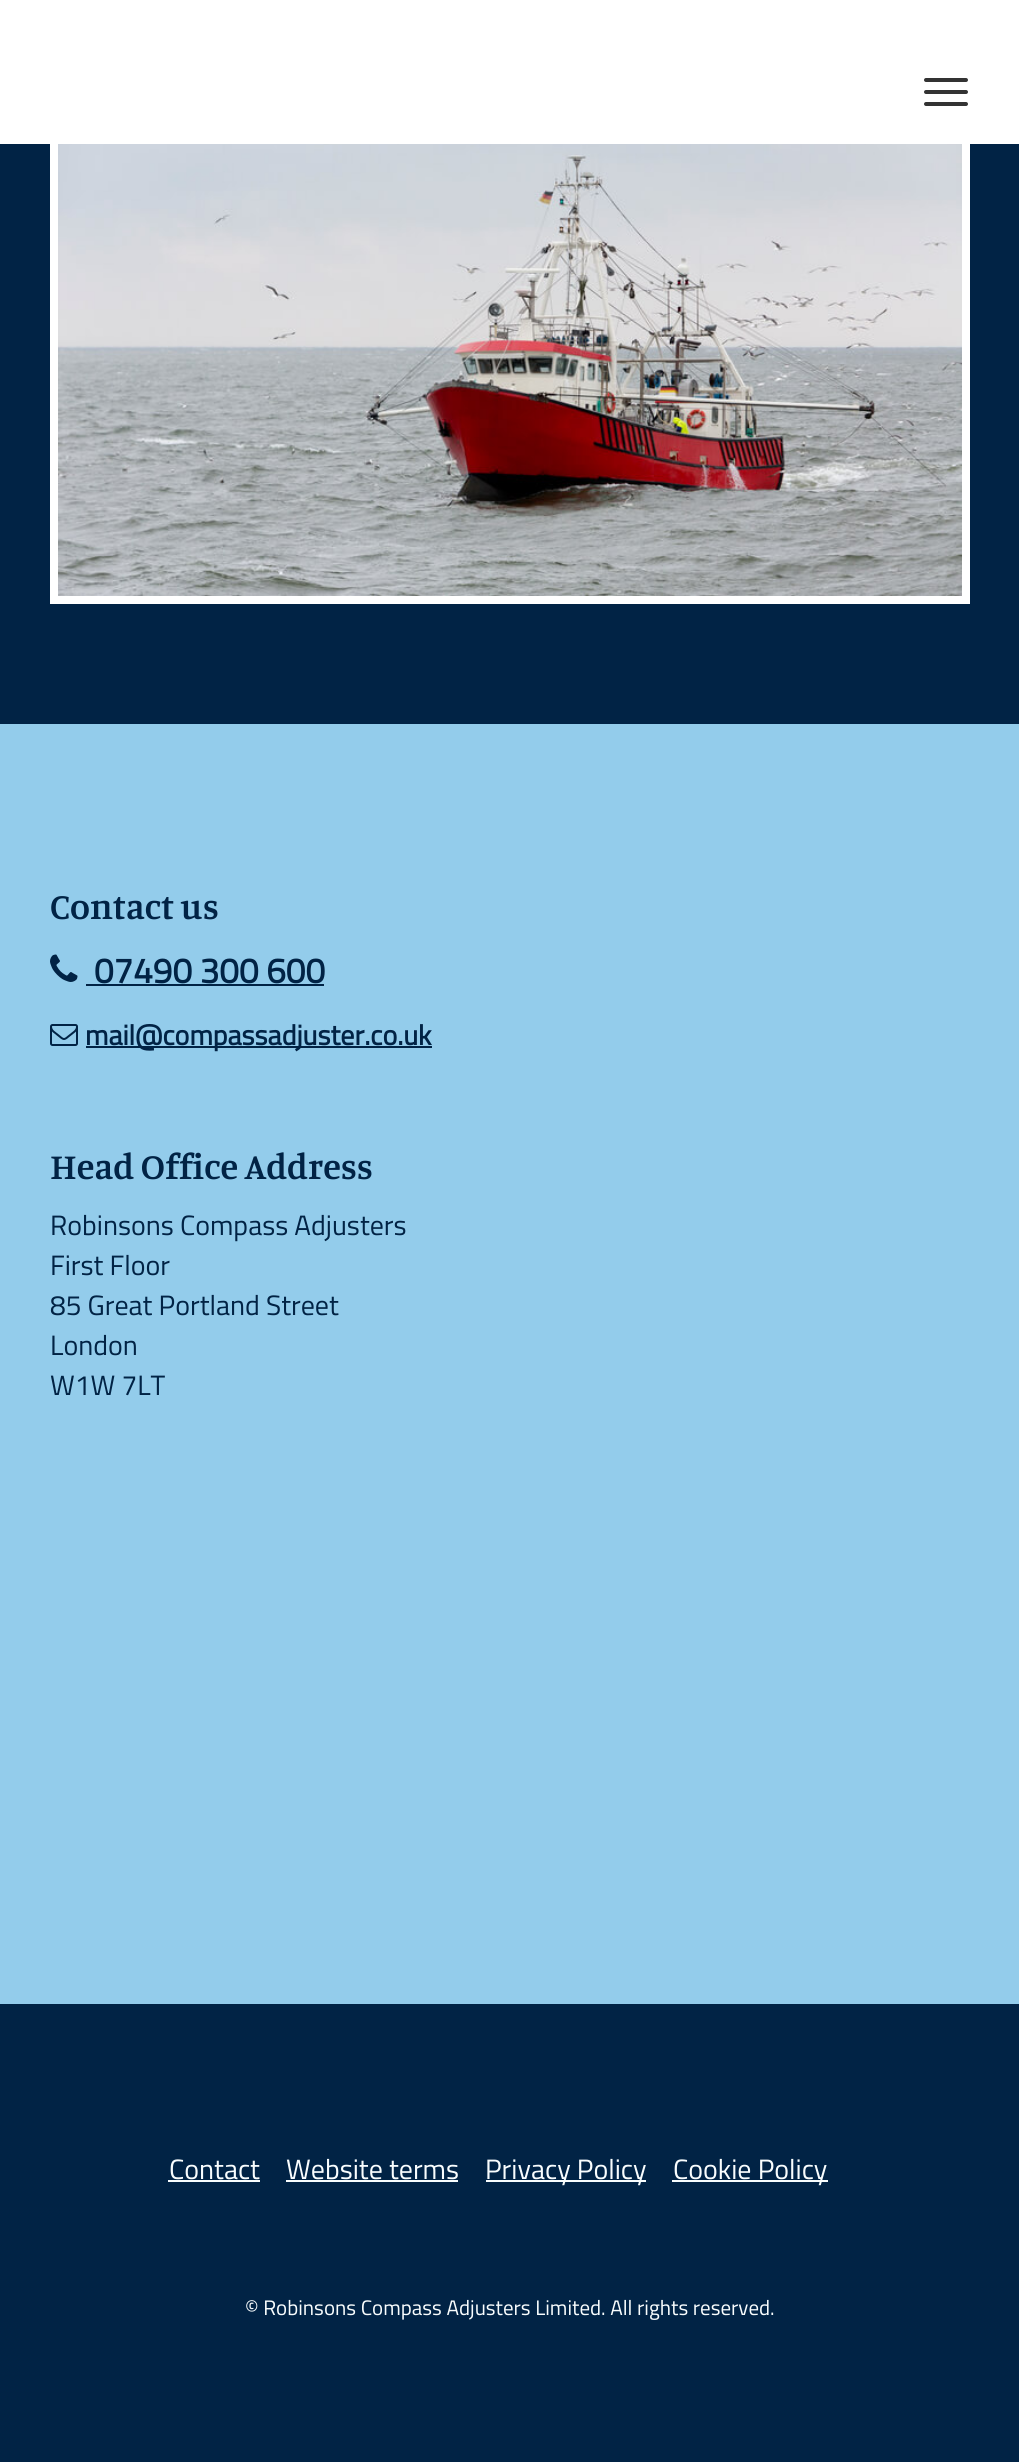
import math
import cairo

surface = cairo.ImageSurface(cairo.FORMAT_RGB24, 1019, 2462)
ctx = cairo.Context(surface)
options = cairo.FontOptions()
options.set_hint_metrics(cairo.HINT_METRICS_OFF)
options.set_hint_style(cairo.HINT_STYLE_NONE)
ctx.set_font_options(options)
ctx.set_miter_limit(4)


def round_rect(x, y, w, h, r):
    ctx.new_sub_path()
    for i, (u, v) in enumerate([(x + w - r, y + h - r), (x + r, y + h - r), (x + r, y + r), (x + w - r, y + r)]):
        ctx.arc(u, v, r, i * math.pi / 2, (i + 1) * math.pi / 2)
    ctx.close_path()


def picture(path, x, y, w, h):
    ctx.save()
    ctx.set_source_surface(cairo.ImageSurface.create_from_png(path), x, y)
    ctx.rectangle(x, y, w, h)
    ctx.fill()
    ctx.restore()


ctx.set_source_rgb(0.004, 0.137, 0.271)
ctx.paint()
ctx.rectangle(54, 86, 912, 514)
ctx.set_source_rgb(1, 1, 1)
ctx.set_line_width(8)
ctx.stroke()
ctx.rectangle(0, 0, 1019, 144)
ctx.fill()
ctx.set_source_rgb(0.2, 0.2, 0.2)
round_rect(924, 78, 44, 4, 2)
ctx.fill()
round_rect(924, 90, 44, 4, 2)
ctx.fill()
round_rect(924, 102, 44, 4, 2)
ctx.fill()
picture("img1.png", 58, 144, 904, 452)
ctx.set_source_rgb(0.576, 0.8, 0.918)
ctx.rectangle(0, 724, 1019, 1280)
ctx.fill()
ctx.select_font_face("Manuale SemiBold")
ctx.set_font_size(36.5)
ctx.set_source_rgb(0.004, 0.137, 0.271)
ctx.move_to(50, 919)
ctx.show_text("Contact us")
picture("img2.png", 50, 954, 28, 28)
ctx.select_font_face("Titillium Web", cairo.FONT_SLANT_NORMAL, cairo.FONT_WEIGHT_BOLD)
ctx.set_font_size(35)
ctx.move_to(94, 983)
ctx.show_text("07490 300 600")
ctx.rectangle(86, 984, 238, 2)
ctx.fill()
picture("img3.png", 50, 1024, 28, 22)
ctx.rectangle(86, 1046, 346, 2)
ctx.fill()
ctx.set_font_size(28)
ctx.move_to(85, 1045)
ctx.show_text("mail@compassadjuster.co.uk")
ctx.select_font_face("Manuale SemiBold")
ctx.set_font_size(36.5)
ctx.move_to(50, 1179)
ctx.show_text("Head Office Address")
ctx.select_font_face("Titillium Web")
ctx.set_font_size(28)
ctx.move_to(50, 1235)
ctx.show_text("Robinsons Compass Adjusters")
ctx.move_to(50, 1275)
ctx.show_text("First Floor")
ctx.move_to(50, 1315)
ctx.show_text("85 Great Portland Street")
ctx.move_to(50, 1355)
ctx.show_text("London")
ctx.move_to(50, 1395)
ctx.show_text("W1W 7LT")
ctx.set_source_rgb(0.973, 0.992, 0.996)
ctx.move_to(169, 2179)
ctx.show_text("Contact")
ctx.rectangle(168, 2180, 92, 2)
ctx.fill()
ctx.move_to(286, 2179)
ctx.show_text("Website terms")
ctx.rectangle(286, 2180, 172, 2)
ctx.fill()
ctx.rectangle(486, 2180, 160, 2)
ctx.fill()
ctx.move_to(485, 2179)
ctx.show_text("Privacy Policy")
ctx.rectangle(672, 2180, 156, 2)
ctx.fill()
ctx.move_to(673, 2179)
ctx.show_text("Cookie Policy")
ctx.set_font_size(21)
ctx.move_to(245, 2315)
ctx.show_text("© Robinsons Compass Adjusters Limited. All rights reserved.")
surface.write_to_png("page.png")
